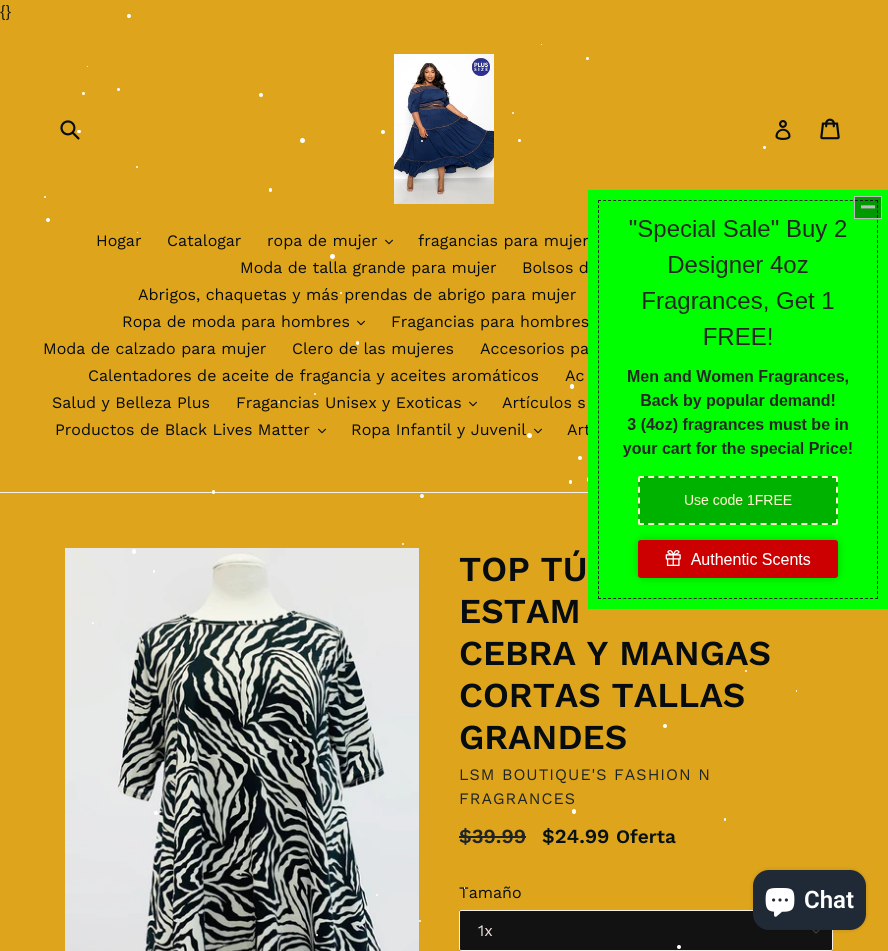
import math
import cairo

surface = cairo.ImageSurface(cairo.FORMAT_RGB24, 888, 951)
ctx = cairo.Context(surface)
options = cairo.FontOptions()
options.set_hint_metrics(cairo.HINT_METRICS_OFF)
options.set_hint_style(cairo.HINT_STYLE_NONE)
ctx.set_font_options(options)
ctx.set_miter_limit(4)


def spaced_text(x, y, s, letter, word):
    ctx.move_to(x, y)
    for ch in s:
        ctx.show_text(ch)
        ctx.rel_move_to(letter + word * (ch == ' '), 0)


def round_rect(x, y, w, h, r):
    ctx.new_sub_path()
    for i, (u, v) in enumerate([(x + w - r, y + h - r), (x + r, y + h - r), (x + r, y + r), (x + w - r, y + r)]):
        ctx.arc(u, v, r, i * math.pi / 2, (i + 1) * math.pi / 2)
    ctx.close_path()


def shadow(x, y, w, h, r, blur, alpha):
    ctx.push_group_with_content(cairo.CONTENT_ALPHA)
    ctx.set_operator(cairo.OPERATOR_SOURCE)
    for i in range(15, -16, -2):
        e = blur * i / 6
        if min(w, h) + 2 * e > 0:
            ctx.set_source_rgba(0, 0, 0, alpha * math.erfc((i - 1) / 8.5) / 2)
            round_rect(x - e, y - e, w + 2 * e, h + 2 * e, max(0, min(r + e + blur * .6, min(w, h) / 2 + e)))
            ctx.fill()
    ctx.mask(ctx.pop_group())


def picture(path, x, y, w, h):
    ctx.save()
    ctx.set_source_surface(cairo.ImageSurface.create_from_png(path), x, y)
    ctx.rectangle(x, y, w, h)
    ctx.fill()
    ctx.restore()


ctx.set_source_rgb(0.871, 0.647, 0.11)
ctx.paint()
ctx.select_font_face("Work Sans")
ctx.set_font_size(16)
ctx.set_source_rgb(0.024, 0.047, 0.063)
ctx.move_to(0, 17)
ctx.show_text("{}")
ctx.set_source_rgb(1, 1, 1)
ctx.new_path()
ctx.arc(129, 16, 2, 0, 2 * math.pi)
ctx.fill()
ctx.arc(541.5, 44.5, 0.5, 0, 2 * math.pi)
ctx.fill()
ctx.arc(587.5, 58.5, 1.5, 0, 2 * math.pi)
ctx.fill()
ctx.arc(87.5, 66.5, 0.5, 0, 2 * math.pi)
ctx.fill()
ctx.arc(118.5, 89.5, 1.5, 0, 2 * math.pi)
ctx.fill()
ctx.arc(83.5, 93.5, 1.5, 0, 2 * math.pi)
ctx.fill()
ctx.arc(261, 95, 2, 0, 2 * math.pi)
ctx.fill()
ctx.arc(513, 113, 1, 0, 2 * math.pi)
ctx.fill()
picture("img2.png", 60, 120, 20, 20)
round_rect(77, 130, 4, 3, 1.5)
ctx.fill()
ctx.arc(383, 132, 2, 0, 2 * math.pi)
ctx.fill()
ctx.arc(302.5, 140.5, 2.5, 0, 2 * math.pi)
ctx.fill()
picture("img3.png", 394, 54, 100, 150)
ctx.arc(422, 141, 1, 0, 2 * math.pi)
ctx.fill()
ctx.arc(519.5, 140.5, 1.5, 0, 2 * math.pi)
ctx.fill()
ctx.arc(764.5, 147.5, 1.5, 0, 2 * math.pi)
ctx.fill()
ctx.arc(137, 167, 1, 0, 2 * math.pi)
ctx.fill()
ctx.arc(45, 197, 1, 0, 2 * math.pi)
ctx.fill()
round_rect(269, 188, 3, 4, 1.5)
ctx.fill()
ctx.set_source_rgb(0.024, 0.047, 0.063)
ctx.move_to(418, 246)
ctx.show_text("fragancias para mujer")
ctx.move_to(480, 354)
ctx.show_text("Accesorios pa")
ctx.move_to(567, 435)
ctx.show_text("Art")
ctx.set_source_rgb(1, 1, 1)
round_rect(587, 477, 4, 5, 2)
ctx.fill()
picture("img1.png", 588, 190, 300, 419)
ctx.arc(48, 220, 2, 0, 2 * math.pi)
ctx.fill()
ctx.arc(137.5, 232.5, 0.5, 0, 2 * math.pi)
ctx.fill()
picture("img4.png", 775, 120, 16, 20)
picture("img5.png", 820, 118, 20, 22)
ctx.set_source_rgb(0.949, 0.941, 0.91)
ctx.rectangle(0, 492, 588, 1)
ctx.fill()
ctx.set_source_rgb(0.024, 0.047, 0.063)
ctx.move_to(96, 246)
ctx.show_text("Hogar")
ctx.move_to(167, 246)
ctx.show_text("Catalogar")
ctx.move_to(267, 246)
ctx.show_text("ropa de mujer")
picture("img6.png", 385, 239, 8, 6)
ctx.move_to(240, 273)
ctx.show_text("Moda de talla grande para mujer")
ctx.move_to(522, 273)
ctx.show_text("Bolsos d")
ctx.move_to(138, 300)
ctx.show_text("Abrigos, chaquetas y más prendas de abrigo para mujer")
ctx.move_to(122, 327)
ctx.show_text("Ropa de moda para hombres")
picture("img6.png", 357, 320, 8, 6)
ctx.move_to(391, 327)
ctx.show_text("Fragancias para hombres")
ctx.move_to(43, 354)
ctx.show_text("Moda de calzado para mujer")
ctx.move_to(292, 354)
ctx.show_text("Clero de las mujeres")
ctx.move_to(88, 381)
ctx.show_text("Calentadores de aceite de fragancia y aceites aromáticos")
ctx.move_to(565, 381)
ctx.show_text("Ac")
ctx.move_to(52, 408)
ctx.show_text("Salud y Belleza Plus")
ctx.move_to(236, 408)
ctx.show_text("Fragancias Unisex y Exoticas")
picture("img6.png", 469, 401, 8, 6)
ctx.move_to(502, 408)
ctx.show_text("Artículos s")
ctx.move_to(55, 435)
ctx.show_text("Productos de Black Lives Matter")
picture("img6.png", 318, 428, 8, 6)
ctx.move_to(351, 435)
ctx.show_text("Ropa Infantil y Juvenil")
picture("img6.png", 534, 428, 8, 6)
ctx.set_source_rgb(1, 1, 1)
ctx.arc(332.5, 256.5, 2.5, 0, 2 * math.pi)
ctx.fill()
ctx.arc(341, 293, 1, 0, 2 * math.pi)
ctx.fill()
round_rect(356, 341, 3, 4, 1.5)
ctx.fill()
round_rect(323, 379, 1, 2, 0.5)
ctx.fill()
round_rect(570, 384, 4, 5, 2)
ctx.fill()
ctx.arc(572.5, 386.5, 1.5, 0, 2 * math.pi)
ctx.fill()
ctx.arc(315, 394, 1, 0, 2 * math.pi)
ctx.fill()
ctx.arc(279, 402, 1, 0, 2 * math.pi)
ctx.fill()
ctx.arc(529.5, 435.5, 2.5, 0, 2 * math.pi)
ctx.fill()
ctx.arc(580, 458, 2, 0, 2 * math.pi)
ctx.fill()
round_rect(569, 480, 3, 4, 1.5)
ctx.fill()
round_rect(212, 490, 3, 4, 1.5)
ctx.fill()
ctx.arc(422, 496, 2, 0, 2 * math.pi)
ctx.fill()
ctx.arc(403, 544, 1, 0, 2 * math.pi)
ctx.fill()
picture("img7.png", 65, 548, 354, 403)
round_rect(132, 549, 4, 5, 2)
ctx.fill()
round_rect(153, 570, 2, 3, 1)
ctx.fill()
ctx.select_font_face("Work Sans SemiBold")
ctx.set_font_size(35)
ctx.set_source_rgb(0.024, 0.047, 0.063)
ctx.move_to(459, 581)
ctx.show_text("TOP TÚ")
ctx.move_to(459, 623)
ctx.show_text("ESTAM")
ctx.move_to(459, 665)
ctx.show_text("CEBRA Y MANGAS")
ctx.move_to(459, 707)
ctx.show_text("CORTAS TALLAS")
ctx.move_to(459, 749)
ctx.show_text("GRANDES")
ctx.select_font_face("Work Sans")
ctx.set_font_size(16)
ctx.set_source_rgb(0.118, 0.141, 0.157)
spaced_text(459, 780, "LSM BOUTIQUE'S FASHION N", 1, 0)
spaced_text(459, 804, "FRAGRANCES", 1, 0)
ctx.select_font_face("Work Sans SemiBold")
ctx.set_font_size(20)
ctx.move_to(459, 843)
ctx.show_text("$39.99")
ctx.rectangle(459, 836, 67, 2)
ctx.fill()
ctx.set_source_rgb(0.039, 0.071, 0.071)
ctx.move_to(542, 843)
ctx.show_text("$24.99")
ctx.set_font_size(19)
ctx.move_to(616, 843)
ctx.show_text("Oferta")
ctx.select_font_face("Work Sans")
ctx.set_font_size(16)
ctx.set_source_rgb(0.024, 0.047, 0.063)
ctx.move_to(459, 898)
ctx.show_text("Tamaño")
ctx.set_source_rgb(0.078, 0.071, 0.071)
round_rect(459, 910, 374, 41, 2)
ctx.fill()
picture("img8.png", 812, 930, 8, 4)
round_rect(459.5, 910.5, 373, 40, 1.5)
ctx.set_source_rgb(0.949, 0.941, 0.91)
ctx.set_line_width(1)
ctx.stroke()
ctx.set_source_rgb(0.922, 0.871, 0.859)
ctx.move_to(478, 936)
ctx.show_text("1x")
ctx.set_source_rgb(1, 1, 1)
ctx.new_path()
ctx.arc(93, 623, 1, 0, 2 * math.pi)
ctx.fill()
ctx.arc(746, 671, 1, 0, 2 * math.pi)
ctx.fill()
round_rect(796, 690, 1, 2, 0.5)
ctx.fill()
ctx.arc(665, 726, 2, 0, 2 * math.pi)
ctx.fill()
round_rect(289, 738, 3, 4, 1.5)
ctx.fill()
ctx.arc(156, 813, 2, 0, 2 * math.pi)
ctx.fill()
round_rect(572, 809, 4, 5, 2)
ctx.fill()
round_rect(724, 818, 2, 3, 1)
ctx.fill()
round_rect(464, 887, 1, 2, 0.5)
ctx.fill()
ctx.arc(377, 895, 1, 0, 2 * math.pi)
ctx.fill()
ctx.set_source_rgb(0, 0, 0)
shadow(753, 870, 113, 60, 16, 2.5, 0.15)
ctx.set_source_rgb(0.125, 0.165, 0.212)
round_rect(753, 870, 113, 60, 16)
ctx.fill()
picture("img9.png", 765, 888, 30, 29)
ctx.select_font_face("Roboto SemiBold")
ctx.set_font_size(24)
ctx.set_source_rgb(1, 1, 1)
ctx.move_to(804, 908)
ctx.show_text("Chat")
ctx.new_path()
ctx.arc(420, 921, 1, 0, 2 * math.pi)
ctx.fill()
ctx.arc(317, 935, 1, 0, 2 * math.pi)
ctx.fill()
ctx.arc(679, 947, 2, 0, 2 * math.pi)
ctx.fill()
surface.write_to_png("page.png")
